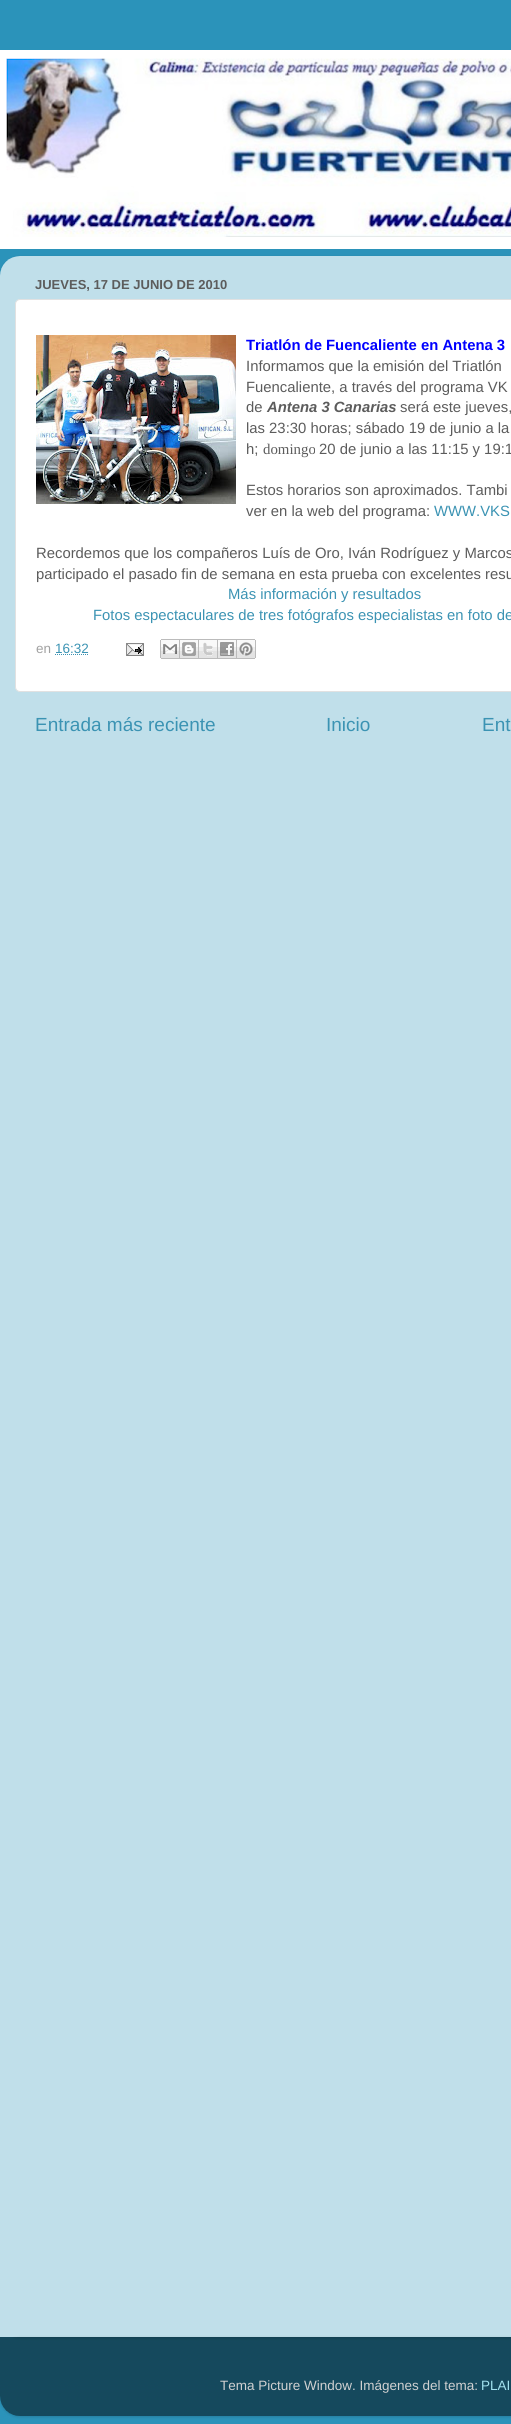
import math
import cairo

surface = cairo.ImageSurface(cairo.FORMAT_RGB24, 511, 2424)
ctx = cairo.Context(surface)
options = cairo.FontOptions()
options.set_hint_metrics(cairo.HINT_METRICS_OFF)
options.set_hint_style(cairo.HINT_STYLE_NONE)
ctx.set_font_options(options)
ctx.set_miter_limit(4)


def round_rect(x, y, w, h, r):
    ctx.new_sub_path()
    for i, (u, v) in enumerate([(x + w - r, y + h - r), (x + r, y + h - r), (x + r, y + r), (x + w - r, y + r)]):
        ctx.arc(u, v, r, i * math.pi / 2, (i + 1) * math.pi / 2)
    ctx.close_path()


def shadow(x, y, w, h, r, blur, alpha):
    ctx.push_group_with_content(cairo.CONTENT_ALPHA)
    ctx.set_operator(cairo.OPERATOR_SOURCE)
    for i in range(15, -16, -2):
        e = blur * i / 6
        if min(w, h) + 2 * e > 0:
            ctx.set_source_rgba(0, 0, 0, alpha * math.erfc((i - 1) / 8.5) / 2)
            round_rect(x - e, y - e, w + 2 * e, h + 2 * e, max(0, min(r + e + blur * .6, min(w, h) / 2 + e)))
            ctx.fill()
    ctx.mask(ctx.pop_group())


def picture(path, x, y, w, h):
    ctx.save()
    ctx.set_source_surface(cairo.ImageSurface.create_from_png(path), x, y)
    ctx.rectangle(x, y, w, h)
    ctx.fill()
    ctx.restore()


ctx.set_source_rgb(0.169, 0.576, 0.729)
ctx.paint()
picture("img1.png", 0, 50, 511, 199)
ctx.save()
ctx.set_fill_rule(cairo.FILL_RULE_EVEN_ODD)
ctx.new_path()
ctx.move_to(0, 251)
ctx.line_to(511, 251)
ctx.line_to(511, 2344)
ctx.line_to(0, 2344)
ctx.close_path()
ctx.move_to(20, 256)
ctx.line_to(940, 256)
ctx.curve_to(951, 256, 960, 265, 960, 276)
ctx.line_to(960, 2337)
ctx.line_to(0, 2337)
ctx.line_to(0, 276)
ctx.curve_to(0, 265, 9, 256, 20, 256)
ctx.close_path()
ctx.clip()
ctx.set_source_rgb(0, 0, 0)
shadow(0, 257, 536, 2081, 20, 1.5, 0.15)
ctx.restore()
picture("img2.png", 0, 256, 511, 2081)
ctx.select_font_face("Liberation Sans", cairo.FONT_SLANT_NORMAL, cairo.FONT_WEIGHT_BOLD)
ctx.set_font_size(13)
ctx.set_source_rgb(0.361, 0.361, 0.361)
ctx.move_to(35, 289)
ctx.show_text("JUEVES, 17 DE JUNIO DE 2010")
ctx.set_source_rgb(1, 1, 1)
round_rect(15.5, 299.5, 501, 392, 4.5)
ctx.fill_preserve()
ctx.set_source_rgb(0.882, 0.882, 0.882)
ctx.set_line_width(1)
ctx.stroke()
picture("img3.png", 36, 335, 200, 169)
ctx.set_font_size(14.85)
ctx.set_source_rgb(0, 0, 1)
ctx.move_to(246, 350)
ctx.show_text("Triatlón de Fuencaliente en Antena 3")
ctx.select_font_face("Liberation Sans")
ctx.set_source_rgb(0.361, 0.361, 0.361)
ctx.move_to(246, 371)
ctx.show_text("Informamos que la emisión del Triatlón")
ctx.move_to(246, 392)
ctx.show_text("Fuencaliente, a través del programa VK")
ctx.move_to(246, 412)
ctx.show_text("de")
ctx.select_font_face("Liberation Sans", cairo.FONT_SLANT_ITALIC, cairo.FONT_WEIGHT_BOLD)
ctx.move_to(267, 412)
ctx.show_text("Antena 3 Canarias")
ctx.select_font_face("Liberation Sans")
ctx.move_to(400, 412)
ctx.show_text("será este jueves,")
ctx.move_to(246, 433)
ctx.show_text("las 23:30 horas; sábado 19 de junio a la")
ctx.move_to(246, 454)
ctx.show_text("h;")
ctx.select_font_face("Liberation Serif")
ctx.move_to(263, 454)
ctx.show_text("domingo")
ctx.select_font_face("Liberation Sans")
ctx.move_to(319, 454)
ctx.show_text("20 de junio a las 11:15 y 19:1")
ctx.move_to(246, 495)
ctx.show_text("Estos horarios son aproximados. Tambi")
ctx.move_to(246, 516)
ctx.show_text("ver en la web del programa:")
ctx.set_source_rgb(0.231, 0.576, 0.702)
ctx.move_to(434, 516)
ctx.show_text("WWW.VKS")
ctx.set_source_rgb(0.361, 0.361, 0.361)
ctx.move_to(36, 558)
ctx.show_text("Recordemos que los compañeros Luís de Oro, Iván Rodríguez y Marcos")
ctx.move_to(36, 579)
ctx.show_text("participado el pasado fin de semana en esta prueba con excelentes resu")
ctx.set_source_rgb(0.231, 0.576, 0.702)
ctx.move_to(228, 599)
ctx.show_text("Más información y resultados")
ctx.move_to(93, 620)
ctx.show_text("Fotos espectaculares de tres fotógrafos especialistas en foto de")
ctx.set_font_size(13.5)
ctx.set_source_rgb(0.631, 0.631, 0.631)
ctx.move_to(36, 653)
ctx.show_text("en")
ctx.set_source_rgb(0.231, 0.576, 0.702)
ctx.move_to(55, 653)
ctx.show_text("16:32")
ctx.new_path()
ctx.move_to(55, 654.5)
ctx.line_to(88.5, 654.5)
ctx.set_dash([1, 1])
ctx.stroke()
picture("img4.png", 126, 643, 18, 13)
picture("img5.png", 160, 639, 20, 20)
picture("img6.png", 180, 639, 19, 20)
picture("img7.png", 199, 639, 19, 20)
picture("img8.png", 218, 639, 19, 20)
picture("img9.png", 237, 639, 19, 20)
ctx.set_font_size(19)
ctx.move_to(35, 731)
ctx.show_text("Entrada más reciente")
ctx.move_to(326, 731)
ctx.show_text("Inicio")
ctx.move_to(482, 731)
ctx.show_text("Ent")
ctx.save()
ctx.set_fill_rule(cairo.FILL_RULE_EVEN_ODD)
ctx.new_path()
ctx.move_to(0, 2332)
ctx.line_to(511, 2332)
ctx.line_to(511, 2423)
ctx.line_to(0, 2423)
ctx.close_path()
ctx.move_to(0, 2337)
ctx.line_to(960, 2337)
ctx.line_to(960, 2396)
ctx.curve_to(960, 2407, 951, 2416, 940, 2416)
ctx.line_to(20, 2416)
ctx.curve_to(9, 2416, 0, 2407, 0, 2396)
ctx.close_path()
ctx.clip()
ctx.set_source_rgb(0, 0, 0)
shadow(0, 2338, 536, 79, 20, 1.5, 0.15)
ctx.restore()
picture("img10.png", 0, 2337, 511, 79)
ctx.set_font_size(13.5)
ctx.set_source_rgb(0.82, 0.82, 0.82)
ctx.move_to(220, 2390)
ctx.show_text("Tema Picture Window. Imágenes del tema:")
ctx.set_source_rgb(0.635, 0.886, 0.937)
ctx.move_to(481, 2390)
ctx.show_text("PLAI")
surface.write_to_png("page.png")
